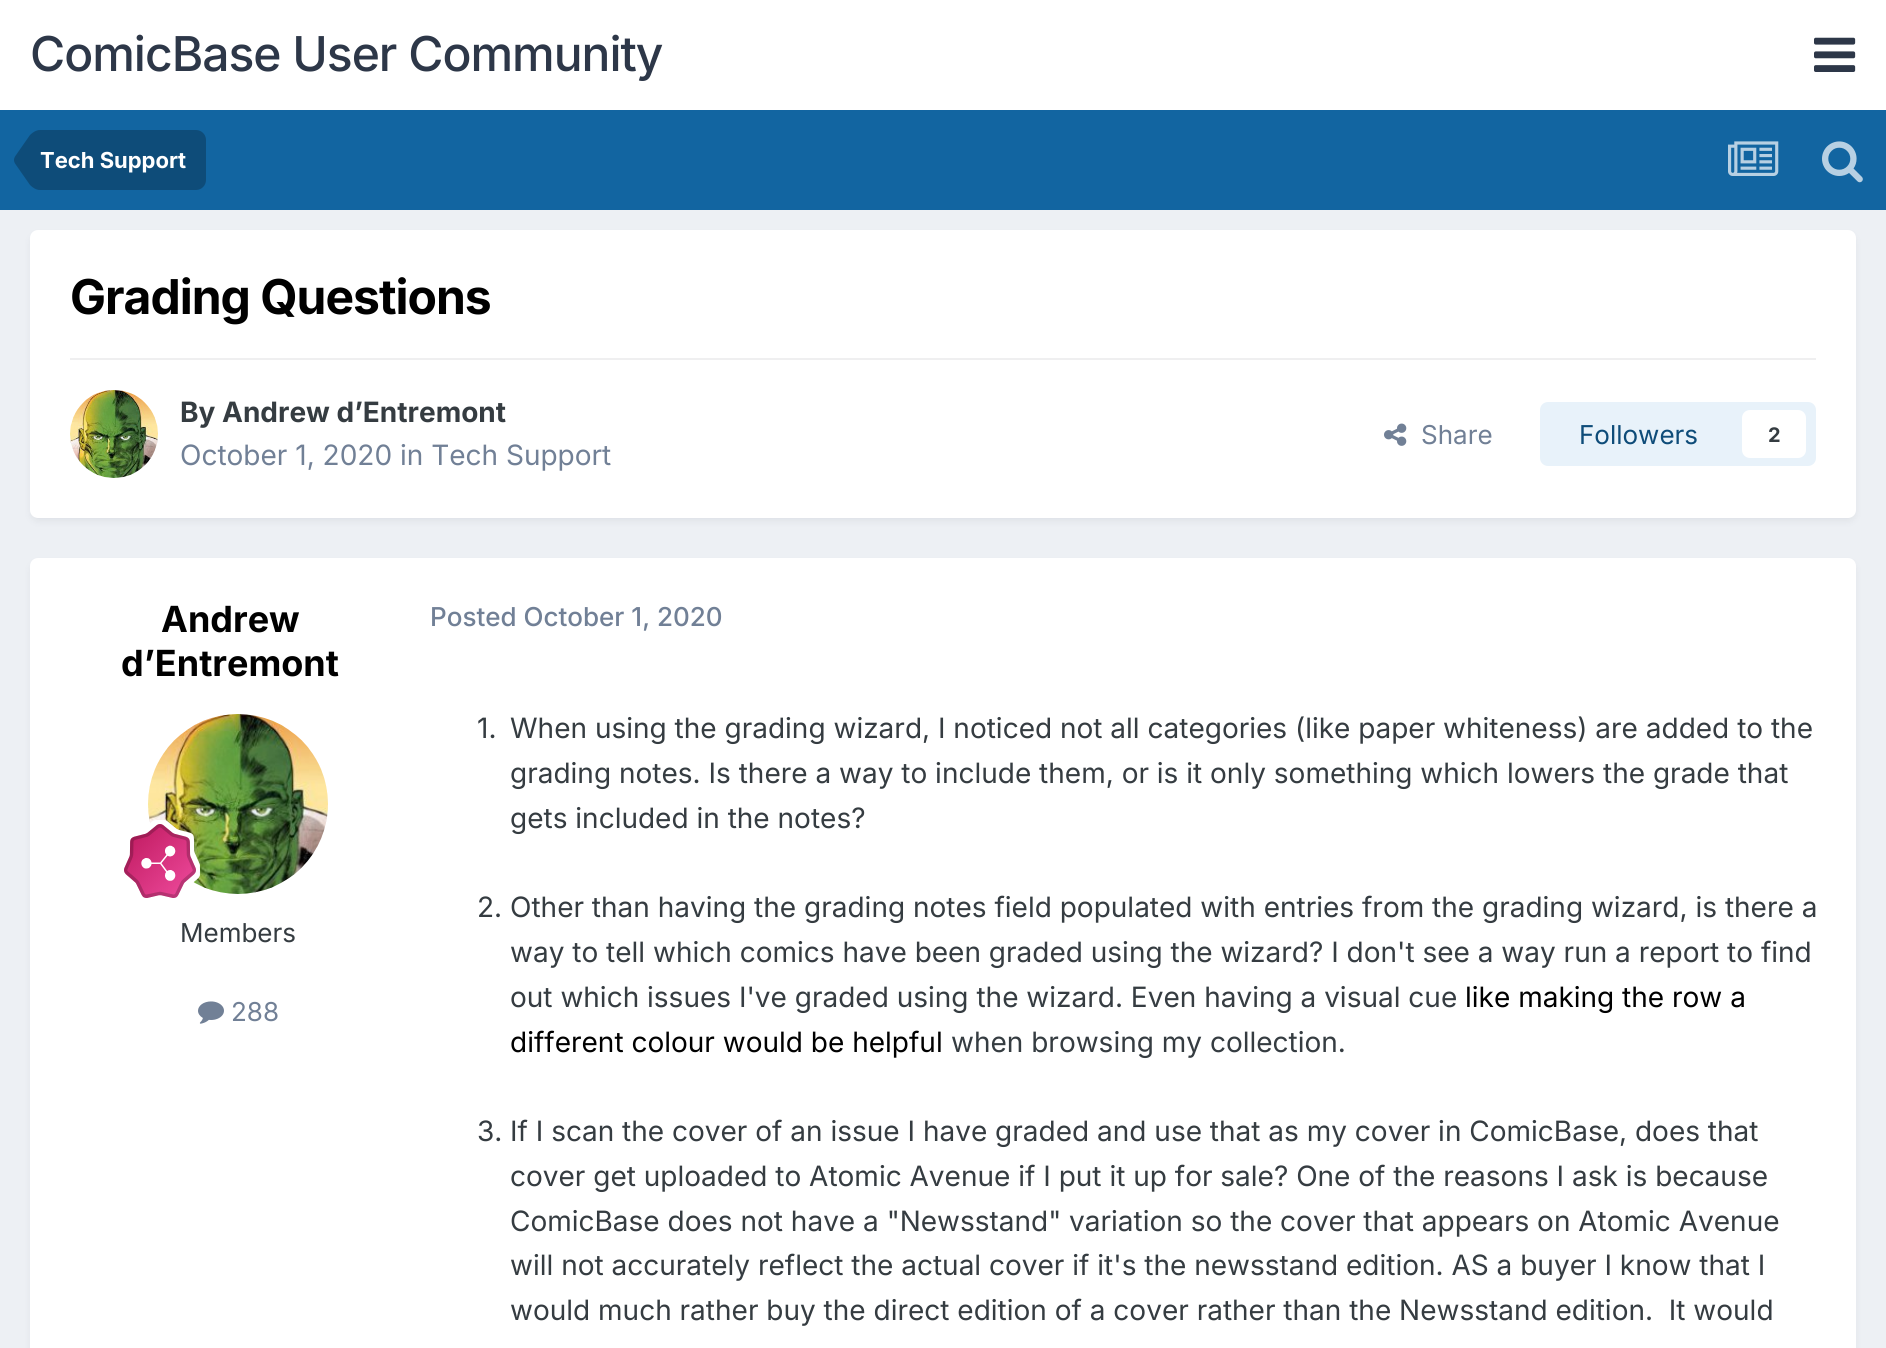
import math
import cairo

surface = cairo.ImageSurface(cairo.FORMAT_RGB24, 1886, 1348)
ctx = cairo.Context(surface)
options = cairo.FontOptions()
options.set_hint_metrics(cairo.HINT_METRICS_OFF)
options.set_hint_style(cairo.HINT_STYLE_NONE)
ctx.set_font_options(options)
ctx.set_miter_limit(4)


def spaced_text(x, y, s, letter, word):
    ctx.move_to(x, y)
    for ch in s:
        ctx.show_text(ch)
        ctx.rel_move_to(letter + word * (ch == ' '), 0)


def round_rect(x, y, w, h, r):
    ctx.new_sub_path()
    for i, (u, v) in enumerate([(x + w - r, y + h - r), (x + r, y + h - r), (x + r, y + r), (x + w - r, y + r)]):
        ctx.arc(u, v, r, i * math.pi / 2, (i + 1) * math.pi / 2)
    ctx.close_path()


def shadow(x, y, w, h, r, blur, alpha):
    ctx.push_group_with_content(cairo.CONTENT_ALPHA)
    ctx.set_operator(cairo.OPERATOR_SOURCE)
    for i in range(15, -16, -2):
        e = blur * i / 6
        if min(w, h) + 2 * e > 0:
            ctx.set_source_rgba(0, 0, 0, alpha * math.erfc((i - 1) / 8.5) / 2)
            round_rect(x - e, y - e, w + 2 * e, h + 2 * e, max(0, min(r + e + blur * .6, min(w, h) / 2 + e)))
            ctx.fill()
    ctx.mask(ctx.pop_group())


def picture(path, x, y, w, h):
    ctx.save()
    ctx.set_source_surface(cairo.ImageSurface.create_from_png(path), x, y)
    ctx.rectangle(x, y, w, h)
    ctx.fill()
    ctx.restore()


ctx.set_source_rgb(0.929, 0.941, 0.957)
ctx.paint()
ctx.set_source_rgb(1, 1, 1)
ctx.rectangle(0, 0, 1886, 110)
ctx.fill()
ctx.select_font_face("Inter Medium")
ctx.set_font_size(48)
ctx.set_source_rgb(0.176, 0.216, 0.282)
spaced_text(30, 71, "ComicBase User Community", -1, 0)
picture("img1.png", 1814, 37, 42, 35)
ctx.set_source_rgb(0.071, 0.396, 0.631)
ctx.rectangle(0, 110, 1886, 100)
ctx.fill()
ctx.set_source_rgb(0.055, 0.298, 0.475)
ctx.new_path()
ctx.move_to(40, 130)
ctx.line_to(196, 130)
ctx.curve_to(201.5, 130, 206, 134.5, 206, 140)
ctx.line_to(206, 180)
ctx.curve_to(206, 185.5, 201.5, 190, 196, 190)
ctx.line_to(40, 190)
ctx.close_path()
ctx.fill()
ctx.new_path()
ctx.move_to(40, 160)
ctx.line_to(40, 190)
ctx.curve_to(36.5, 190, 33, 188, 30, 185)
ctx.line_to(15, 163.5)
ctx.curve_to(14.5, 162.5, 14, 161.5, 14, 160)
ctx.close_path()
ctx.move_to(40, 160)
ctx.line_to(14, 160)
ctx.curve_to(14, 158.5, 14.5, 157.5, 15, 156.5)
ctx.line_to(30, 135)
ctx.curve_to(33, 132, 36.5, 130, 40, 130)
ctx.close_path()
ctx.fill()
ctx.select_font_face("Inter", cairo.FONT_SLANT_NORMAL, cairo.FONT_WEIGHT_BOLD)
ctx.set_font_size(22)
ctx.set_source_rgb(1, 1, 1)
ctx.move_to(40, 168)
ctx.show_text("Tech Support")
picture("img2.png", 1728, 141, 51, 35)
picture("img3.png", 1822, 141, 41, 42)
ctx.set_source_rgb(0.176, 0.216, 0.282)
shadow(32, 236, 1822, 284, 6, 4, 0.1)
ctx.set_source_rgb(1, 1, 1)
round_rect(30, 230, 1826, 288, 8)
ctx.fill()
ctx.set_font_size(48)
ctx.set_source_rgb(0, 0, 0)
spaced_text(70, 314, "Grading Questions", -1, 0)
ctx.set_source_rgb(0.937, 0.937, 0.941)
ctx.rectangle(70, 358, 1746, 2)
ctx.fill()
picture("img4.png", 70, 390, 88, 88)
ctx.set_font_size(28)
ctx.set_source_rgb(0.208, 0.235, 0.255)
ctx.move_to(180, 422)
ctx.show_text("By Andrew d’Entremont")
ctx.select_font_face("Inter")
ctx.set_source_rgb(0.443, 0.502, 0.588)
ctx.move_to(180, 465)
ctx.show_text("October 1, 2020 in Tech Support")
picture("img5.png", 1384, 423, 23, 23)
ctx.set_font_size(26)
ctx.move_to(1421, 444)
ctx.show_text("Share")
ctx.set_source_rgb(0.91, 0.949, 0.98)
round_rect(1540, 402, 276, 64, 8)
ctx.fill()
ctx.set_source_rgb(0.055, 0.298, 0.475)
ctx.move_to(1579, 444)
ctx.show_text("Followers")
ctx.set_source_rgb(1, 1, 1)
round_rect(1742, 410, 64, 48, 8)
ctx.fill()
ctx.select_font_face("Inter", cairo.FONT_SLANT_NORMAL, cairo.FONT_WEIGHT_BOLD)
ctx.set_font_size(20)
ctx.set_source_rgb(0.208, 0.235, 0.255)
ctx.move_to(1768, 442)
ctx.show_text("2")
ctx.set_source_rgb(0.176, 0.216, 0.282)
shadow(32, 564, 1822, 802, 6, 4, 0.1)
ctx.set_source_rgb(1, 1, 1)
round_rect(30, 558, 1826, 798, 8)
ctx.fill()
ctx.set_font_size(36)
ctx.set_source_rgb(0, 0, 0)
ctx.move_to(161, 632)
ctx.show_text("Andrew")
ctx.move_to(121, 676)
ctx.show_text("d’Entremont")
picture("img6.png", 148, 714, 180, 180)
picture("img7.png", 124, 820, 76, 78)
ctx.select_font_face("Inter")
ctx.set_font_size(26)
ctx.set_source_rgb(0.208, 0.235, 0.255)
ctx.move_to(180, 942)
ctx.show_text("Members")
picture("img8.png", 198, 1001, 26, 23)
ctx.set_source_rgb(0.443, 0.502, 0.588)
ctx.move_to(231, 1021)
ctx.show_text("288")
ctx.select_font_face("Inter Medium")
ctx.move_to(430, 626)
ctx.show_text("Posted October 1, 2020")
ctx.select_font_face("Inter")
ctx.set_font_size(28)
ctx.set_source_rgb(0.208, 0.235, 0.255)
ctx.move_to(477, 738)
ctx.show_text("1.")
ctx.move_to(510, 738)
ctx.show_text("When using the grading wizard, I noticed not all categories (like paper whiteness) are added to the")
ctx.move_to(510, 783)
ctx.show_text("grading notes. Is there a way to include them, or is it only something which lowers the grade that")
ctx.move_to(510, 828)
ctx.show_text("gets included in the notes?")
ctx.move_to(477, 917)
ctx.show_text("2.")
ctx.move_to(510, 917)
ctx.show_text("Other than having the grading notes field populated with entries from the grading wizard, is there a")
ctx.move_to(510, 962)
ctx.show_text("way to tell which comics have been graded using the wizard? I don't see a way run a report to find")
ctx.move_to(510, 1007)
ctx.show_text("out which issues I've graded using the wizard. Even having a visual cue")
ctx.set_source_rgb(0, 0, 0)
ctx.move_to(1465, 1007)
ctx.show_text("like making the row a")
ctx.move_to(510, 1052)
ctx.show_text("different colour would be helpful")
ctx.set_source_rgb(0.208, 0.235, 0.255)
ctx.move_to(951, 1052)
ctx.show_text("when browsing my collection.")
ctx.move_to(477, 1141)
ctx.show_text("3.")
ctx.move_to(510, 1141)
ctx.show_text("If I scan the cover of an issue I have graded and use that as my cover in ComicBase, does that")
ctx.move_to(510, 1186)
ctx.show_text("cover get uploaded to Atomic Avenue if I put it up for sale? One of the reasons I ask is because")
ctx.move_to(510, 1231)
ctx.show_text("ComicBase does not have a \"Newsstand\" variation so the cover that appears on Atomic Avenue")
ctx.move_to(510, 1275)
ctx.show_text("will not accurately reflect the actual cover if it's the newsstand edition. AS a buyer I know that I")
ctx.move_to(510, 1320)
ctx.show_text("would much rather buy the direct edition of a cover rather than the Newsstand edition.  It would")
surface.write_to_png("page.png")
